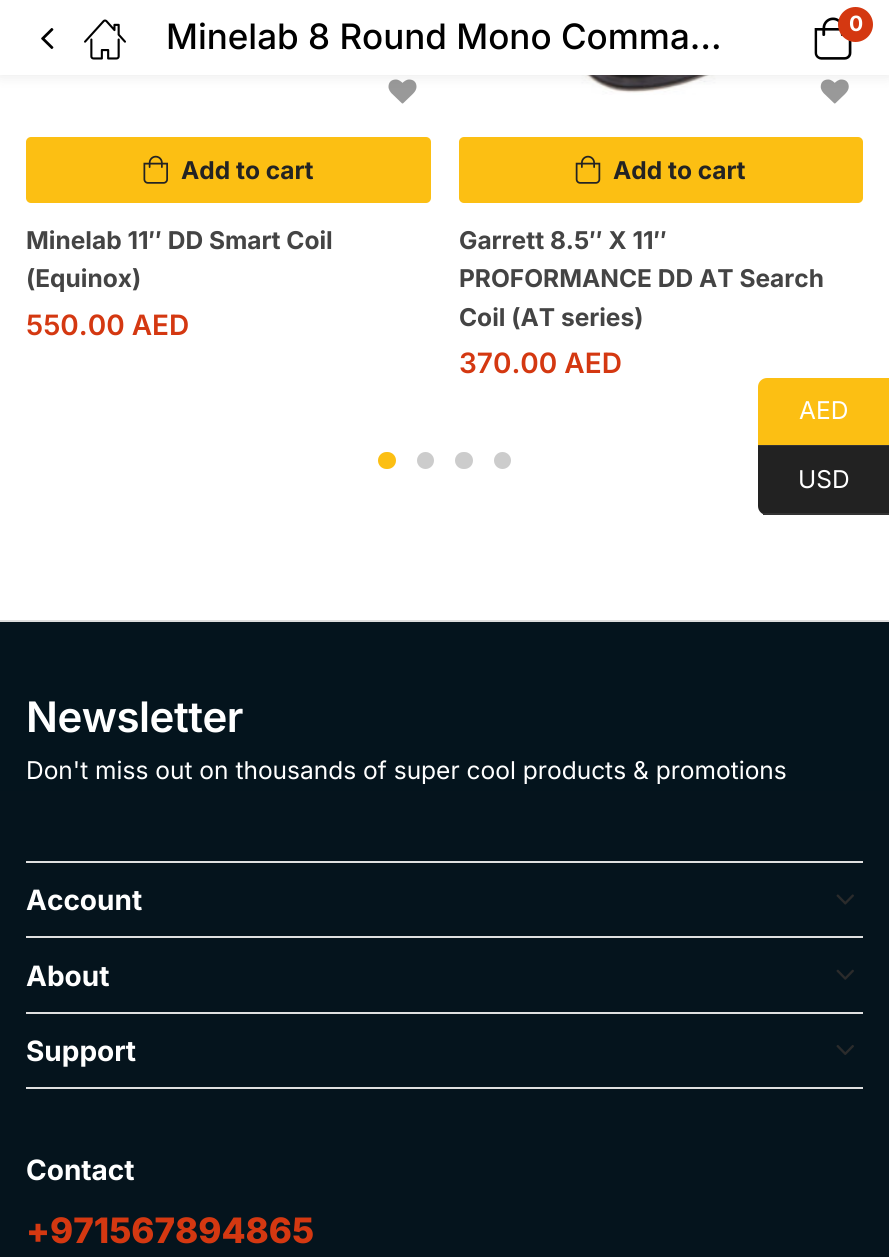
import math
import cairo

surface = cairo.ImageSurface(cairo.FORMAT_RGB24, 889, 1257)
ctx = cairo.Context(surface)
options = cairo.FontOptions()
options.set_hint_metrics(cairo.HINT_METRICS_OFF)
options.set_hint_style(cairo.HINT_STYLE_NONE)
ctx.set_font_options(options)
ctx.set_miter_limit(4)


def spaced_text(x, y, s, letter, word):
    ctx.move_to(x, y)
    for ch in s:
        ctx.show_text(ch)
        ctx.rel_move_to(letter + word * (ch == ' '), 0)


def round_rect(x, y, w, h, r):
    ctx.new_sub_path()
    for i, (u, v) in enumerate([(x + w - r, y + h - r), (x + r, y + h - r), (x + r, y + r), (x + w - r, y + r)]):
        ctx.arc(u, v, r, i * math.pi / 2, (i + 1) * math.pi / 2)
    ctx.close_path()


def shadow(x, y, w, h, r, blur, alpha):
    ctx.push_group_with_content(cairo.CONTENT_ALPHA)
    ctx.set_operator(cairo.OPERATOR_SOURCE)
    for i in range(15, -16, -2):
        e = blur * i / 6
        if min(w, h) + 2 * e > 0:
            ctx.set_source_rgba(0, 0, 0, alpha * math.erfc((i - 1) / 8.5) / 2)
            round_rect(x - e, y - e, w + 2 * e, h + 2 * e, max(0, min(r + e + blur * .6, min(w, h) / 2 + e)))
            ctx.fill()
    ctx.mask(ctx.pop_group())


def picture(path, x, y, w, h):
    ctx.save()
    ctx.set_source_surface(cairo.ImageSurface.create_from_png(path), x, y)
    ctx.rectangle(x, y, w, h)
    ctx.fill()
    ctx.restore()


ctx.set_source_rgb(1, 1, 1)
ctx.paint()
picture("img4.png", 388, 79, 29, 25)
picture("img6.png", 517, 75, 294, 20)
picture("img7.png", 820, 79, 29, 25)
ctx.set_source_rgb(0, 0, 0)
shadow(0, 0, 889, 75, 0, 7, 0.1)
ctx.set_source_rgb(1, 1, 1)
ctx.rectangle(0, 0, 889, 75)
ctx.fill()
picture("img1.png", 41, 28, 13, 21)
picture("img2.png", 84, 19, 42, 41)
ctx.select_font_face("Inter Medium")
ctx.set_font_size(35)
ctx.set_source_rgb(0, 0, 0)
ctx.move_to(166, 49)
ctx.show_text("Minelab 8 Round Mono Comma…")
picture("img3.png", 814, 17, 38, 43)
ctx.set_source_rgb(0.831, 0.22, 0.067)
ctx.arc(855.5, 24.5, 17.5, 0, 2 * math.pi)
ctx.fill()
ctx.select_font_face("Inter", cairo.FONT_SLANT_NORMAL, cairo.FONT_WEIGHT_BOLD)
ctx.set_font_size(21)
ctx.set_source_rgb(1, 1, 1)
ctx.move_to(849, 31)
ctx.show_text("0")
ctx.set_source_rgb(0.988, 0.749, 0.078)
round_rect(26, 137, 405, 66, 5)
ctx.fill()
picture("img5.png", 143, 155, 25, 29)
ctx.set_font_size(24.5)
ctx.set_source_rgb(0.137, 0.137, 0.137)
ctx.move_to(181, 179)
ctx.show_text("Add to cart")
ctx.set_source_rgb(0.267, 0.267, 0.267)
ctx.move_to(26, 249)
ctx.show_text("Minelab 11″ DD Smart Coil")
ctx.move_to(26, 287)
ctx.show_text("(Equinox)")
ctx.select_font_face("Inter SemiBold")
ctx.set_font_size(28)
ctx.set_source_rgb(0.831, 0.22, 0.067)
ctx.move_to(26, 335)
ctx.show_text("550.00 AED")
ctx.set_source_rgb(0.988, 0.749, 0.078)
round_rect(459, 137, 404, 66, 5)
ctx.fill()
picture("img8.png", 575, 155, 26, 29)
ctx.select_font_face("Inter", cairo.FONT_SLANT_NORMAL, cairo.FONT_WEIGHT_BOLD)
ctx.set_font_size(24.5)
ctx.set_source_rgb(0.137, 0.137, 0.137)
ctx.move_to(613, 179)
ctx.show_text("Add to cart")
ctx.set_source_rgb(0.267, 0.267, 0.267)
ctx.move_to(459, 249)
ctx.show_text("Garrett 8.5″ X 11″")
ctx.move_to(459, 287)
ctx.show_text("PROFORMANCE DD AT Search")
ctx.move_to(459, 326)
ctx.show_text("Coil (AT series)")
ctx.select_font_face("Inter SemiBold")
ctx.set_font_size(28)
ctx.set_source_rgb(0.831, 0.22, 0.067)
ctx.move_to(459, 373)
ctx.show_text("370.00 AED")
ctx.set_source_rgb(0.988, 0.749, 0.078)
round_rect(378, 452, 18, 17, 8.5)
ctx.fill()
ctx.set_source_rgb(0.8, 0.8, 0.8)
ctx.arc(425.5, 460.5, 8.5, 0, 2 * math.pi)
ctx.fill()
round_rect(455, 452, 18, 17, 8.5)
ctx.fill()
ctx.arc(502.5, 460.5, 8.5, 0, 2 * math.pi)
ctx.fill()
ctx.set_source_rgb(0.016, 0.082, 0.114)
ctx.rectangle(0, 622, 889, 169)
ctx.fill()
ctx.set_source_rgb(0.867, 0.867, 0.867)
ctx.rectangle(0, 620, 889, 2)
ctx.fill()
ctx.set_font_size(42)
ctx.set_source_rgb(1, 1, 1)
spaced_text(26, 732, "Newsletter", -0.5, 0)
ctx.select_font_face("Inter")
ctx.set_font_size(24.5)
ctx.move_to(26, 779)
ctx.show_text("Don't miss out on thousands of super cool products & promotions")
ctx.set_source_rgb(0.02, 0.082, 0.114)
ctx.rectangle(0, 791, 889, 466)
ctx.fill()
ctx.set_source_rgb(0.878, 0.878, 0.878)
ctx.rectangle(26, 861, 837, 2)
ctx.fill()
ctx.select_font_face("Inter", cairo.FONT_SLANT_NORMAL, cairo.FONT_WEIGHT_BOLD)
ctx.set_font_size(28)
ctx.set_source_rgb(1, 1, 1)
ctx.move_to(26, 910)
ctx.show_text("Account")
picture("img9.png", 836, 894, 18, 11)
ctx.set_source_rgb(0.878, 0.878, 0.878)
ctx.rectangle(26, 936, 837, 2)
ctx.fill()
ctx.set_source_rgb(1, 1, 1)
ctx.move_to(26, 986)
ctx.show_text("About")
picture("img10.png", 836, 969, 18, 11)
ctx.set_source_rgb(0.878, 0.878, 0.878)
ctx.rectangle(26, 1012, 837, 2)
ctx.fill()
ctx.rectangle(26, 1087, 837, 2)
ctx.fill()
ctx.set_source_rgb(1, 1, 1)
ctx.move_to(26, 1061)
ctx.show_text("Support")
picture("img11.png", 836, 1045, 18, 10)
ctx.move_to(26, 1180)
ctx.show_text("Contact")
ctx.select_font_face("Inter ExtraBold")
ctx.set_font_size(35)
ctx.set_source_rgb(0.831, 0.22, 0.067)
ctx.move_to(26, 1243)
ctx.show_text("+971567894865")
ctx.set_source_rgb(0.988, 0.749, 0.078)
ctx.new_path()
ctx.move_to(767, 378)
ctx.line_to(889, 378)
ctx.line_to(889, 446)
ctx.line_to(758, 446)
ctx.line_to(758, 387)
ctx.curve_to(758, 382, 762, 378, 767, 378)
ctx.close_path()
ctx.fill()
ctx.set_source_rgb(0.2, 0.2, 0.2)
ctx.rectangle(758, 445, 131, 1)
ctx.fill()
ctx.select_font_face("Inter")
ctx.set_font_size(24.5)
ctx.set_source_rgb(1, 1, 1)
ctx.move_to(799, 419)
ctx.show_text("AED")
ctx.set_source_rgb(0.133, 0.133, 0.133)
ctx.new_path()
ctx.move_to(758, 446)
ctx.line_to(889, 446)
ctx.line_to(889, 515)
ctx.line_to(767, 515)
ctx.curve_to(762, 515, 758, 511, 758, 506)
ctx.close_path()
ctx.fill()
ctx.set_source_rgb(0.2, 0.2, 0.2)
ctx.rectangle(763, 513, 126, 2)
ctx.fill()
ctx.set_source_rgb(1, 1, 1)
ctx.move_to(798, 488)
ctx.show_text("USD")
surface.write_to_png("page.png")
